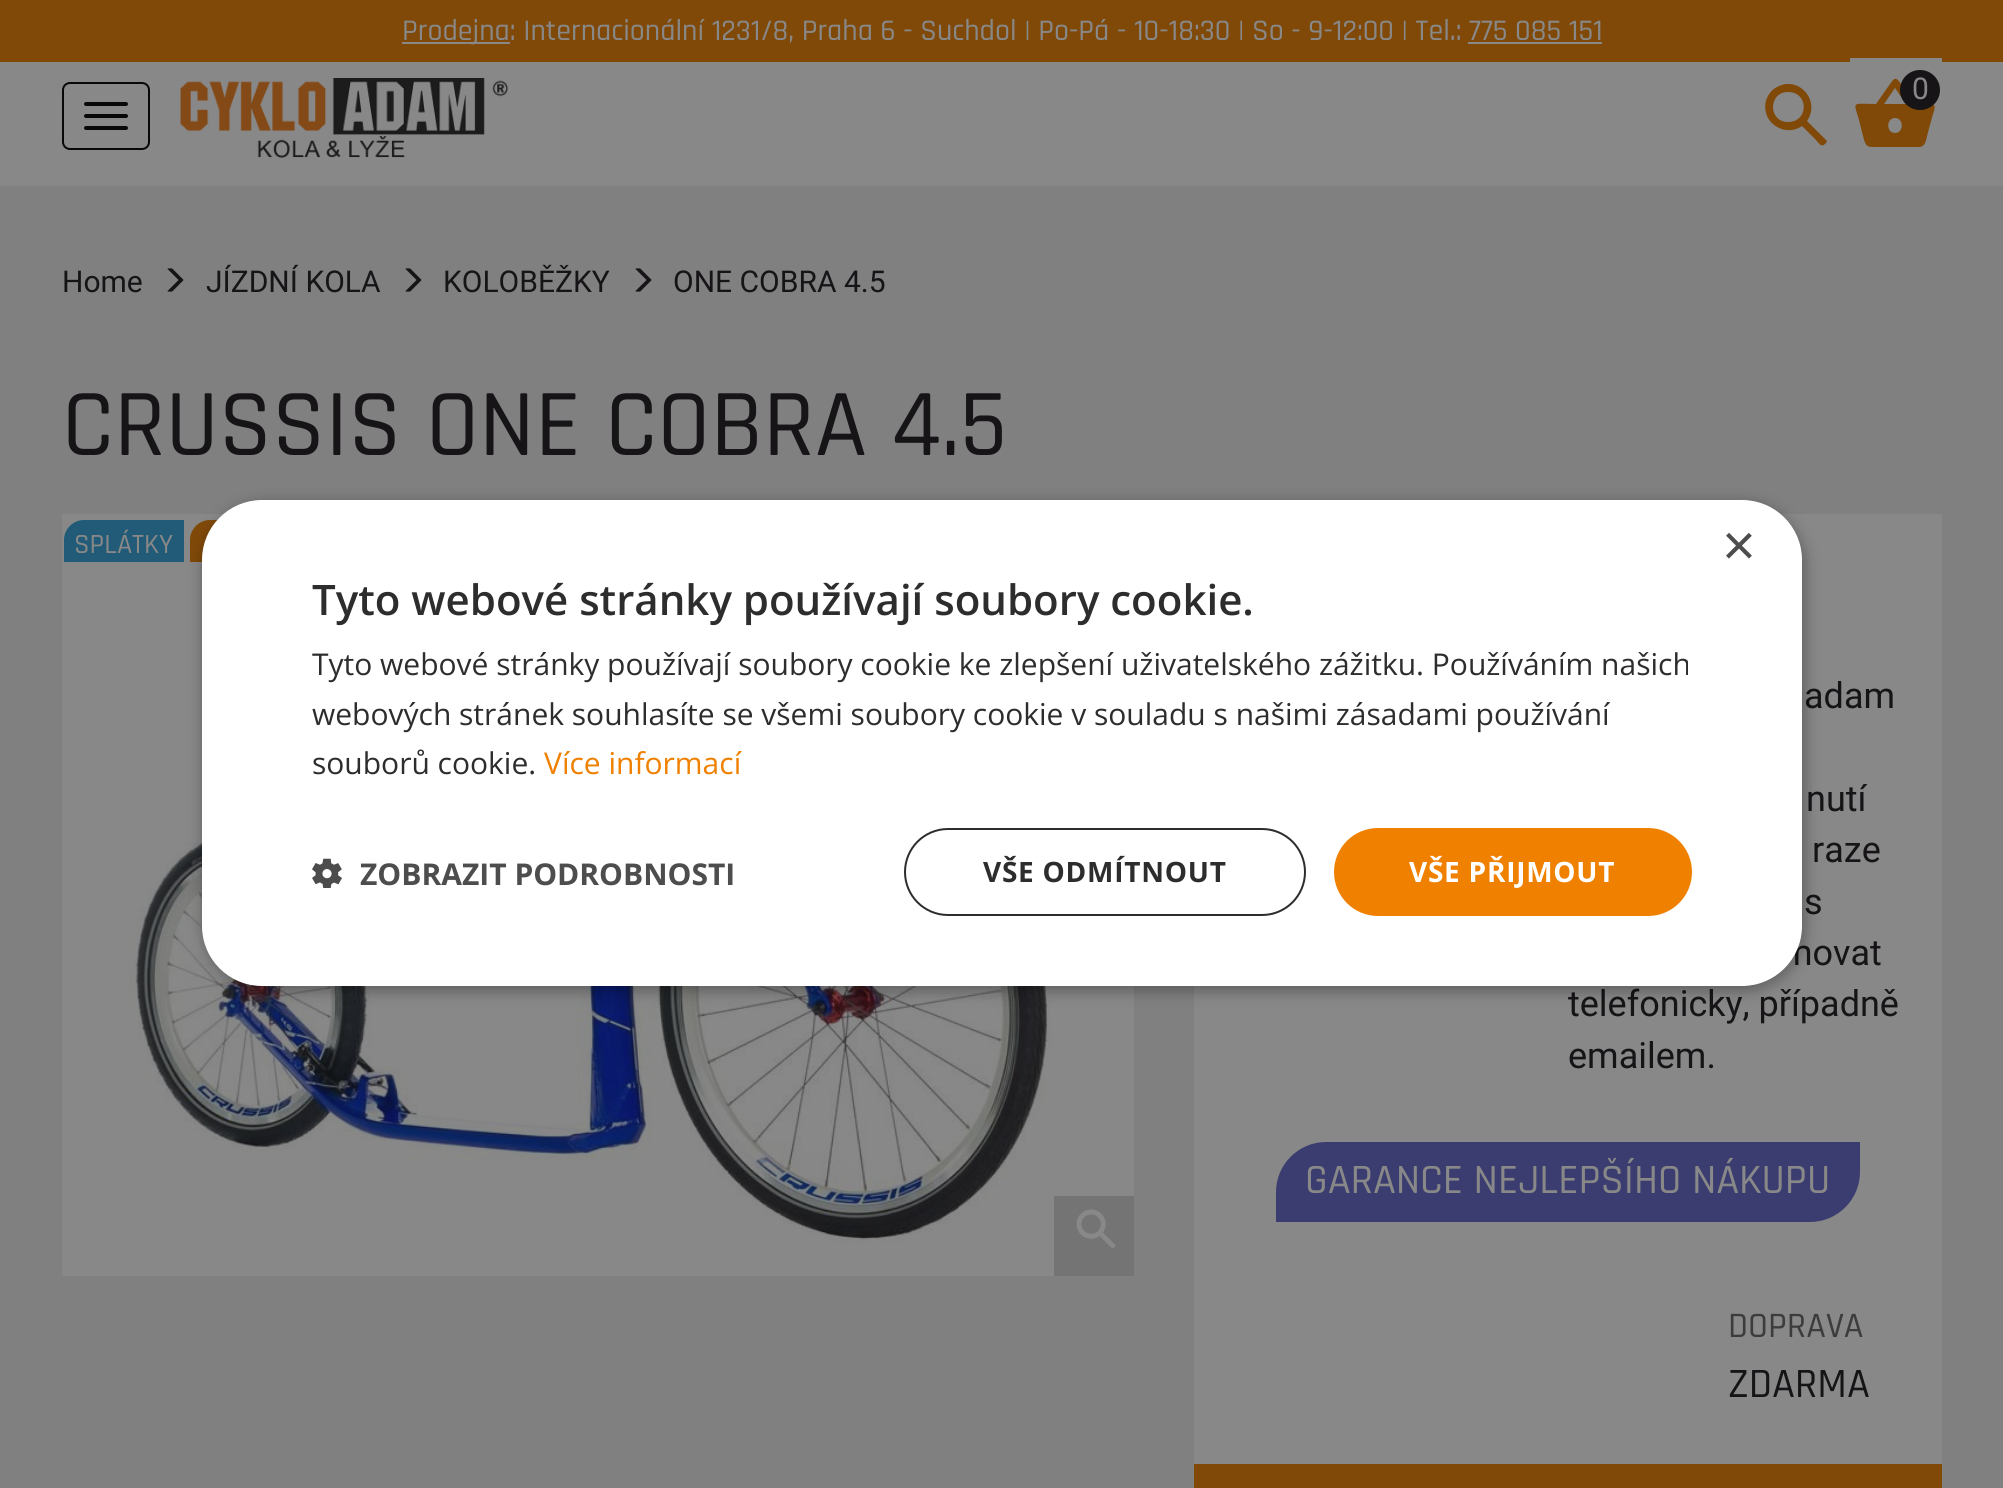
import math
import cairo

surface = cairo.ImageSurface(cairo.FORMAT_RGB24, 2003, 1488)
ctx = cairo.Context(surface)
options = cairo.FontOptions()
options.set_hint_metrics(cairo.HINT_METRICS_OFF)
options.set_hint_style(cairo.HINT_STYLE_NONE)
ctx.set_font_options(options)
ctx.set_miter_limit(4)


def spaced_text(x, y, s, letter, word):
    ctx.move_to(x, y)
    for ch in s:
        ctx.show_text(ch)
        ctx.rel_move_to(letter + word * (ch == ' '), 0)


def round_rect(x, y, w, h, r):
    ctx.new_sub_path()
    for i, (u, v) in enumerate([(x + w - r, y + h - r), (x + r, y + h - r), (x + r, y + r), (x + w - r, y + r)]):
        ctx.arc(u, v, r, i * math.pi / 2, (i + 1) * math.pi / 2)
    ctx.close_path()


def shadow(x, y, w, h, r, blur, alpha):
    ctx.push_group_with_content(cairo.CONTENT_ALPHA)
    ctx.set_operator(cairo.OPERATOR_SOURCE)
    for i in range(15, -16, -2):
        e = blur * i / 6
        if min(w, h) + 2 * e > 0:
            ctx.set_source_rgba(0, 0, 0, alpha * math.erfc((i - 1) / 8.5) / 2)
            round_rect(x - e, y - e, w + 2 * e, h + 2 * e, max(0, min(r + e + blur * .6, min(w, h) / 2 + e)))
            ctx.fill()
    ctx.mask(ctx.pop_group())


def picture(path, x, y, w, h):
    ctx.save()
    ctx.set_source_surface(cairo.ImageSurface.create_from_png(path), x, y)
    ctx.rectangle(x, y, w, h)
    ctx.fill()
    ctx.restore()


ctx.set_source_rgb(0.533, 0.533, 0.533)
ctx.paint()
ctx.set_source_rgb(0.502, 0.286, 0.035)
ctx.rectangle(0, 0, 2003, 62)
ctx.fill()
ctx.set_source_rgb(0.533, 0.533, 0.533)
ctx.rectangle(402, 42, 108, 2)
ctx.fill()
ctx.select_font_face("Rajdhani Medium")
ctx.set_font_size(30)
ctx.move_to(402, 40)
ctx.show_text("Prodejna: Internacionální 1231/8, Praha 6 - Suchdol | Po-Pá - 10-18:30 | So - 9-12:00 | Tel.: 775 085 151")
ctx.rectangle(1468, 42, 134, 2)
ctx.fill()
round_rect(63, 83, 86, 66, 7)
ctx.set_source_rgb(0.035, 0.035, 0.035)
ctx.stroke()
round_rect(84, 102, 44, 4, 2)
ctx.fill()
round_rect(84, 114, 44, 4, 2)
ctx.fill()
round_rect(84, 126, 44, 4, 2)
ctx.fill()
picture("img1.png", 180, 78, 328, 80)
ctx.set_source_rgb(0.502, 0.286, 0.035)
ctx.new_path()
ctx.move_to(1826, 140)
ctx.curve_to(1828, 141, 1826, 143, 1825, 144)
ctx.curve_to(1821, 148, 1819, 143, 1815, 139)
ctx.line_to(1802, 126)
ctx.curve_to(1791, 134, 1775, 130, 1768, 118)
ctx.curve_to(1765, 112, 1764, 104, 1767, 98)
ctx.curve_to(1769, 93, 1773, 89, 1777, 87)
ctx.curve_to(1799, 75, 1821, 101, 1807, 121)
ctx.close_path()
ctx.move_to(1788, 92)
ctx.curve_to(1768, 92, 1768, 122, 1788, 122)
ctx.curve_to(1809, 122, 1809, 92, 1788, 92)
ctx.close_path()
ctx.fill()
ctx.set_source_rgb(0.533, 0.533, 0.533)
ctx.rectangle(1850, 58, 92, 4)
ctx.fill()
ctx.set_source_rgb(0.502, 0.286, 0.035)
ctx.new_path()
ctx.move_to(1931, 104)
ctx.line_to(1914, 104)
ctx.line_to(1901, 84)
ctx.curve_to(1896, 77, 1895, 77, 1890, 84)
ctx.line_to(1876, 104)
ctx.curve_to(1852, 104, 1853, 100, 1859, 120)
ctx.line_to(1863, 136)
ctx.curve_to(1866, 148, 1867, 147, 1879, 147)
ctx.line_to(1919, 147)
ctx.curve_to(1925, 147, 1926, 141, 1927, 136)
ctx.line_to(1933, 114)
ctx.curve_to(1934, 111, 1937, 104, 1931, 104)
ctx.close_path()
ctx.move_to(1895, 133)
ctx.curve_to(1886, 133, 1886, 118, 1895, 118)
ctx.curve_to(1904, 118, 1904, 133, 1895, 133)
ctx.close_path()
ctx.move_to(1884, 104)
ctx.line_to(1895, 88)
ctx.line_to(1906, 104)
ctx.close_path()
ctx.fill()
ctx.set_source_rgb(0.086, 0.082, 0.09)
ctx.arc(1920, 90, 20, 0, 2 * math.pi)
ctx.fill()
ctx.select_font_face("Roboto")
ctx.set_source_rgb(0.533, 0.533, 0.533)
ctx.move_to(1912, 99)
ctx.show_text("0")
ctx.set_source_rgb(0.502, 0.502, 0.502)
ctx.rectangle(0, 186, 2003, 1302)
ctx.fill()
ctx.set_source_rgb(0.086, 0.082, 0.09)
ctx.move_to(62, 292)
ctx.show_text("Home")
picture("img2.png", 167, 268, 17, 24)
ctx.move_to(206, 292)
ctx.show_text("JÍZDNÍ KOLA")
picture("img2.png", 405, 268, 17, 24)
ctx.move_to(443, 292)
ctx.show_text("KOLOBĚŽKY")
picture("img2.png", 635, 268, 17, 24)
ctx.move_to(673, 292)
ctx.show_text("ONE COBRA 4.5")
ctx.select_font_face("Rajdhani Medium")
ctx.set_font_size(96)
ctx.move_to(62, 455)
ctx.show_text("CRUSSIS ONE COBRA 4.5")
ctx.set_source_rgb(0.533, 0.533, 0.533)
ctx.rectangle(62, 514, 1072, 762)
ctx.fill()
picture("img3.png", 128, 552, 925, 692)
ctx.set_source_rgb(0.129, 0.357, 0.471)
ctx.new_path()
ctx.move_to(84, 520)
ctx.line_to(184, 520)
ctx.line_to(184, 562)
ctx.line_to(64, 562)
ctx.line_to(64, 540)
ctx.curve_to(64, 529, 73, 520, 84, 520)
ctx.close_path()
ctx.fill()
ctx.set_font_size(28)
ctx.set_source_rgb(0.533, 0.533, 0.533)
ctx.move_to(74, 553)
ctx.show_text("SPLÁTKY")
ctx.set_source_rgb(0.502, 0.286, 0.035)
ctx.new_path()
ctx.move_to(210, 520)
ctx.line_to(308, 520)
ctx.line_to(308, 562)
ctx.line_to(190, 562)
ctx.line_to(190, 540)
ctx.curve_to(190, 529, 199, 520, 210, 520)
ctx.close_path()
ctx.fill()
ctx.set_source_rgb(0.455, 0.455, 0.455)
ctx.rectangle(1054, 1196, 80, 80)
ctx.fill()
picture("img4.png", 1076, 1209, 40, 40)
ctx.set_source_rgb(0.533, 0.533, 0.533)
ctx.rectangle(1194, 514, 748, 950)
ctx.fill()
ctx.select_font_face("Roboto")
ctx.set_font_size(36)
ctx.set_source_rgb(0.086, 0.082, 0.09)
ctx.move_to(1804, 708)
ctx.show_text("adam")
ctx.move_to(1806, 811)
ctx.show_text("nutí")
ctx.move_to(1812, 862)
ctx.show_text("raze")
ctx.move_to(1804, 914)
ctx.show_text("s")
ctx.move_to(1781, 965)
ctx.show_text("movat")
ctx.move_to(1568, 1016)
ctx.show_text("telefonicky, případně")
ctx.move_to(1568, 1068)
ctx.show_text("emailem.")
ctx.set_source_rgb(0.231, 0.235, 0.439)
ctx.new_path()
ctx.move_to(1326, 1142)
ctx.line_to(1860, 1142)
ctx.line_to(1860, 1172)
ctx.curve_to(1860, 1199.5, 1837.5, 1222, 1810, 1222)
ctx.line_to(1276, 1222)
ctx.line_to(1276, 1192)
ctx.curve_to(1276, 1164.5, 1298.5, 1142, 1326, 1142)
ctx.close_path()
ctx.fill()
ctx.select_font_face("Rajdhani Medium")
ctx.set_font_size(42)
ctx.set_source_rgb(0.533, 0.533, 0.533)
ctx.move_to(1305, 1193)
ctx.show_text("GARANCE NEJLEPŠÍHO NÁKUPU")
ctx.set_font_size(36)
ctx.set_source_rgb(0.235, 0.235, 0.235)
ctx.move_to(1728, 1337)
ctx.show_text("DOPRAVA")
ctx.set_font_size(42)
ctx.set_source_rgb(0.086, 0.082, 0.09)
ctx.move_to(1728, 1397)
ctx.show_text("ZDARMA")
ctx.set_source_rgb(0.502, 0.286, 0.035)
ctx.rectangle(1194, 1464, 748, 24)
ctx.fill()
ctx.set_source_rgb(0, 0, 0)
shadow(204, 504, 1600, 486, 60, 8, 0.35)
ctx.set_source_rgb(1, 1, 1)
round_rect(202, 500, 1600, 486, 60)
ctx.fill()
ctx.select_font_face("Liberation Sans")
ctx.set_font_size(58)
ctx.set_source_rgb(0.302, 0.302, 0.302)
ctx.move_to(1722, 565)
ctx.show_text("×")
ctx.select_font_face("Open Sans SemiBold")
ctx.set_font_size(42)
ctx.set_source_rgb(0.176, 0.176, 0.176)
ctx.move_to(312, 615)
ctx.show_text("Tyto webové stránky používají soubory cookie.")
ctx.select_font_face("Open Sans")
ctx.set_font_size(30)
ctx.move_to(312, 675)
ctx.show_text("Tyto webové stránky používají soubory cookie ke zlepšení uživatelského zážitku. Používáním našich")
ctx.move_to(312, 725)
ctx.show_text("webových stránek souhlasíte se všemi soubory cookie v souladu s našimi zásadami používání")
ctx.move_to(312, 774)
ctx.show_text("souborů cookie.")
ctx.set_source_rgb(0.937, 0.502, 0)
ctx.move_to(544, 774)
ctx.show_text("Více informací")
picture("img5.png", 312, 858, 30, 30)
ctx.select_font_face("Open Sans", cairo.FONT_SLANT_NORMAL, cairo.FONT_WEIGHT_BOLD)
ctx.set_source_rgb(0.302, 0.302, 0.302)
ctx.move_to(360, 885)
ctx.show_text("ZOBRAZIT PODROBNOSTI")
round_rect(905, 829, 400, 86, 43)
ctx.set_source_rgb(0.176, 0.176, 0.176)
ctx.stroke()
ctx.set_font_size(28)
spaced_text(983, 882, "VŠE ODMÍTNOUT", 0.75, 0)
ctx.set_source_rgb(0.937, 0.502, 0)
round_rect(1334, 828, 358, 88, 44)
ctx.fill()
ctx.set_source_rgb(1, 1, 1)
spaced_text(1409, 882, "VŠE PŘIJMOUT", 0.75, 0)
surface.write_to_png("page.png")
